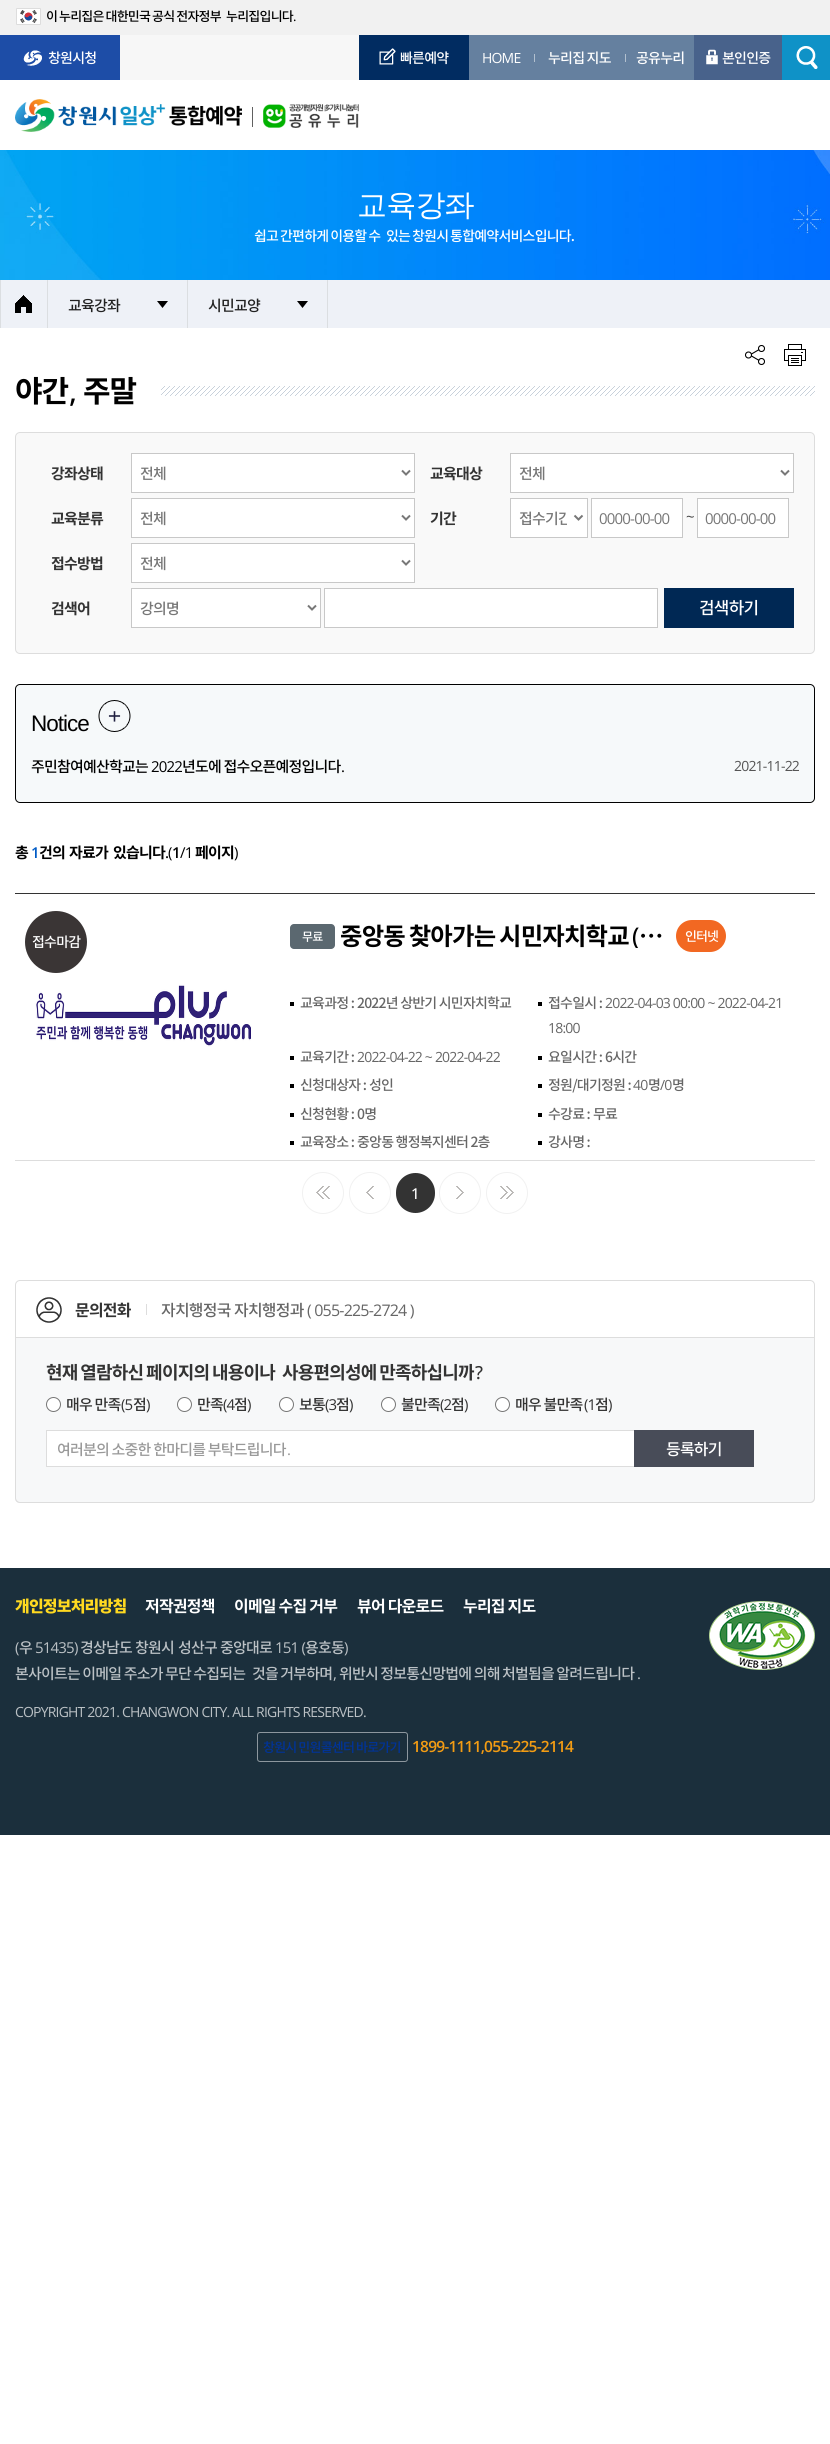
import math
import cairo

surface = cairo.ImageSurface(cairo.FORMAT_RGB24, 830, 2444)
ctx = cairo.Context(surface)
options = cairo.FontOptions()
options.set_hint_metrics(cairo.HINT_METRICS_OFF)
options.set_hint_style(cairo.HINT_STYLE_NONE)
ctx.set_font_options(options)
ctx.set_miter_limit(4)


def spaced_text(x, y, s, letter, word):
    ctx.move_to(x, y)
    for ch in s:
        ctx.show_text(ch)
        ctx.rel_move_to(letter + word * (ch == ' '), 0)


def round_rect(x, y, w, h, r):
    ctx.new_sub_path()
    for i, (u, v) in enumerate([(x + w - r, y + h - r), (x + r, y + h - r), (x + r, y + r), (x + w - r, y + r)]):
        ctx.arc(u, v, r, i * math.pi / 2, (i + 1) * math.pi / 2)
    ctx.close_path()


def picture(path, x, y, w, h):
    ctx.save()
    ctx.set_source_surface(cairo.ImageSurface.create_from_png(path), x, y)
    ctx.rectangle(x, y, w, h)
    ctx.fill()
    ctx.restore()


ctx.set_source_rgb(1, 1, 1)
ctx.paint()
ctx.set_source_rgb(0.945, 0.945, 0.945)
ctx.rectangle(0, 0, 830, 35)
ctx.fill()
picture("img1.png", 16, 8, 25, 17)
ctx.select_font_face("Noto Sans KR Medium")
ctx.set_font_size(13)
ctx.set_source_rgb(0, 0, 0)
spaced_text(46, 21, "이 누리집은 대한민국 공식 전자정부", -0.8, -0.25)
spaced_text(226, 21, "누리집입니다", -0.8, -0.25)
ctx.select_font_face("Open Sans")
spaced_text(293, 21, ".", -0.8, 0)
ctx.set_source_rgb(0.965, 0.965, 0.965)
ctx.rectangle(120, 35, 239, 45)
ctx.fill()
ctx.set_source_rgb(0.114, 0.302, 0.655)
ctx.rectangle(0, 35, 120, 45)
ctx.fill()
picture("img2.png", 23, 50, 19, 16)
ctx.select_font_face("Noto Sans KR Medium")
ctx.set_font_size(14)
ctx.set_source_rgb(1, 1, 1)
spaced_text(48, 63, "창원시청", -0.8, 0)
ctx.set_source_rgb(0.004, 0.173, 0.38)
ctx.rectangle(359, 35, 110, 45)
ctx.fill()
picture("img3.png", 379, 48, 17, 17)
ctx.set_source_rgb(1, 1, 1)
spaced_text(400, 63, "빠른예약", -0.8, 0)
ctx.set_source_rgb(0.396, 0.502, 0.624)
ctx.rectangle(469, 35, 225, 45)
ctx.fill()
ctx.select_font_face("Open Sans")
ctx.set_source_rgb(1, 1, 1)
spaced_text(482, 63, "HOME", -0.8, 0)
ctx.set_source_rgb(0.698, 0.753, 0.812)
ctx.rectangle(534, 54, 1, 8)
ctx.fill()
ctx.select_font_face("Noto Sans KR Medium")
ctx.set_source_rgb(1, 1, 1)
spaced_text(548, 63, "누리집 지도", -0.8, 0)
ctx.set_source_rgb(0.698, 0.753, 0.812)
ctx.rectangle(625, 54, 1, 8)
ctx.fill()
ctx.set_source_rgb(1, 1, 1)
spaced_text(636, 63, "공유누리", -0.8, 0)
ctx.set_source_rgb(0.282, 0.384, 0.545)
ctx.rectangle(694, 35, 88, 45)
ctx.fill()
picture("img4.png", 706, 49, 12, 16)
ctx.set_source_rgb(1, 1, 1)
spaced_text(722, 63, "본인인증", -0.8, 0)
ctx.set_source_rgb(0.059, 0.573, 0.78)
ctx.rectangle(782, 35, 48, 45)
ctx.fill()
picture("img5.png", 796, 46, 22, 23)
picture("img6.png", 15, 99, 227, 33)
ctx.set_source_rgb(0.376, 0.376, 0.376)
ctx.rectangle(252, 107, 1, 20)
ctx.fill()
picture("img7.png", 263, 104, 96, 24)
picture("img8.png", 0, 150, 830, 130)
ctx.select_font_face("WenQuanYi Zen Hei Medium")
ctx.set_font_size(30)
ctx.set_source_rgb(1, 1, 1)
spaced_text(357, 215, "교육강좌", -0.8, 0)
ctx.select_font_face("Noto Sans KR Medium")
ctx.set_font_size(14)
spaced_text(254, 241, "쉽고 간편하게 이용할 수", -0.8, -0.5)
spaced_text(386, 241, "있는 창원시 통합예약서비스입니다.", -0.8, -0.5)
ctx.set_source_rgb(0.933, 0.945, 0.965)
ctx.rectangle(1, 280, 829, 48)
ctx.fill()
ctx.set_source_rgb(0.859, 0.871, 0.882)
ctx.rectangle(47, 280, 1, 48)
ctx.fill()
ctx.rectangle(0, 280, 1, 48)
ctx.fill()
picture("img9.png", 15, 295, 17, 18)
ctx.rectangle(187, 280, 1, 48)
ctx.fill()
ctx.set_font_size(15)
ctx.set_source_rgb(0.133, 0.133, 0.133)
spaced_text(68, 311, "교육강좌", -0.8, 0)
picture("img10.png", 157, 301, 11, 7)
ctx.set_source_rgb(0.859, 0.871, 0.882)
ctx.rectangle(327, 280, 1, 48)
ctx.fill()
ctx.set_source_rgb(0.133, 0.133, 0.133)
spaced_text(208, 311, "시민교양", -0.8, 0)
picture("img10.png", 297, 301, 11, 7)
picture("img11.png", 745, 345, 20, 20)
picture("img12.png", 784, 344, 22, 22)
picture("img13.png", 161, 386, 654, 10)
ctx.select_font_face("Noto Sans KR", cairo.FONT_SLANT_NORMAL, cairo.FONT_WEIGHT_BOLD)
ctx.set_font_size(30)
ctx.set_source_rgb(0, 0, 0)
spaced_text(15, 402, "야간", -1, 0)
ctx.select_font_face("Open Sans Medium")
spaced_text(69, 402, ",", -1, 0)
ctx.select_font_face("Noto Sans KR", cairo.FONT_SLANT_NORMAL, cairo.FONT_WEIGHT_BOLD)
spaced_text(83, 402, "주말", -1, 0)
ctx.set_source_rgb(0.976, 0.976, 0.976)
round_rect(15.5, 432.5, 799, 221, 4.5)
ctx.fill_preserve()
ctx.set_source_rgb(0.867, 0.867, 0.867)
ctx.set_line_width(1)
ctx.stroke()
ctx.set_font_size(15)
ctx.set_source_rgb(0.2, 0.2, 0.2)
spaced_text(51, 479, "강좌상태", -0.8, 0)
ctx.set_source_rgb(1, 1, 1)
ctx.rectangle(131.5, 453.5, 283, 39)
ctx.fill_preserve()
ctx.set_source_rgb(0.784, 0.784, 0.784)
ctx.stroke()
ctx.new_path()
ctx.move_to(402, 470.5)
ctx.line_to(406, 474.5)
ctx.line_to(410, 470.5)
ctx.set_source_rgb(0.467, 0.467, 0.467)
ctx.set_line_width(2)
ctx.stroke()
ctx.select_font_face("Noto Sans KR Medium")
spaced_text(140, 479, "전체", -0.8, 0)
ctx.select_font_face("Noto Sans KR", cairo.FONT_SLANT_NORMAL, cairo.FONT_WEIGHT_BOLD)
ctx.set_source_rgb(0.2, 0.2, 0.2)
spaced_text(430, 479, "교육대상", -0.8, 0)
ctx.set_source_rgb(1, 1, 1)
ctx.rectangle(510.5, 453.5, 283, 39)
ctx.fill_preserve()
ctx.set_source_rgb(0.784, 0.784, 0.784)
ctx.set_line_width(1)
ctx.stroke()
ctx.new_path()
ctx.move_to(781, 470.5)
ctx.line_to(785, 474.5)
ctx.line_to(789, 470.5)
ctx.set_source_rgb(0.467, 0.467, 0.467)
ctx.set_line_width(2)
ctx.stroke()
ctx.select_font_face("Noto Sans KR Medium")
spaced_text(519, 479, "전체", -0.8, 0)
ctx.select_font_face("Noto Sans KR", cairo.FONT_SLANT_NORMAL, cairo.FONT_WEIGHT_BOLD)
ctx.set_source_rgb(0.2, 0.2, 0.2)
spaced_text(51, 524, "교육분류", -0.8, 0)
ctx.set_source_rgb(1, 1, 1)
ctx.rectangle(131.5, 498.5, 283, 39)
ctx.fill_preserve()
ctx.set_source_rgb(0.784, 0.784, 0.784)
ctx.set_line_width(1)
ctx.stroke()
ctx.new_path()
ctx.move_to(402, 515.5)
ctx.line_to(406, 519.5)
ctx.line_to(410, 515.5)
ctx.set_source_rgb(0.467, 0.467, 0.467)
ctx.set_line_width(2)
ctx.stroke()
ctx.select_font_face("Noto Sans KR Medium")
spaced_text(140, 524, "전체", -0.8, 0)
ctx.select_font_face("Noto Sans KR", cairo.FONT_SLANT_NORMAL, cairo.FONT_WEIGHT_BOLD)
ctx.set_source_rgb(0.2, 0.2, 0.2)
spaced_text(430, 524, "기간", -0.8, 0)
ctx.set_source_rgb(1, 1, 1)
ctx.rectangle(510.5, 498.5, 77, 39)
ctx.fill_preserve()
ctx.set_source_rgb(0.784, 0.784, 0.784)
ctx.set_line_width(1)
ctx.stroke()
ctx.new_path()
ctx.move_to(574.5, 515.5)
ctx.line_to(578.5, 519.5)
ctx.line_to(582.5, 515.5)
ctx.set_source_rgb(0.467, 0.467, 0.467)
ctx.set_line_width(2)
ctx.stroke()
ctx.save()
ctx.rectangle(519, 507, 48, 22)
ctx.clip()
ctx.select_font_face("Noto Sans KR Medium")
spaced_text(519, 524, "접수기간", -0.8, 0)
ctx.restore()
ctx.set_source_rgb(1, 1, 1)
ctx.rectangle(591.5, 498.5, 91, 39)
ctx.fill_preserve()
ctx.set_source_rgb(0.784, 0.784, 0.784)
ctx.set_line_width(1)
ctx.stroke()
ctx.select_font_face("Open Sans")
ctx.set_source_rgb(0.467, 0.467, 0.467)
spaced_text(599, 524, "0000-00-00", -0.8, 0)
ctx.set_source_rgb(0.267, 0.267, 0.267)
spaced_text(686, 522, "~", -0.8, 0)
ctx.set_source_rgb(1, 1, 1)
ctx.rectangle(697.5, 498.5, 91, 39)
ctx.fill_preserve()
ctx.set_source_rgb(0.784, 0.784, 0.784)
ctx.stroke()
ctx.set_source_rgb(0.467, 0.467, 0.467)
spaced_text(705, 524, "0000-00-00", -0.8, 0)
ctx.select_font_face("Noto Sans KR", cairo.FONT_SLANT_NORMAL, cairo.FONT_WEIGHT_BOLD)
ctx.set_source_rgb(0.2, 0.2, 0.2)
spaced_text(51, 569, "접수방법", -0.8, 0)
ctx.set_source_rgb(1, 1, 1)
ctx.rectangle(131.5, 543.5, 283, 39)
ctx.fill_preserve()
ctx.set_source_rgb(0.784, 0.784, 0.784)
ctx.stroke()
ctx.new_path()
ctx.move_to(402, 560.5)
ctx.line_to(406, 564.5)
ctx.line_to(410, 560.5)
ctx.set_source_rgb(0.467, 0.467, 0.467)
ctx.set_line_width(2)
ctx.stroke()
ctx.select_font_face("Noto Sans KR Medium")
spaced_text(140, 569, "전체", -0.8, 0)
ctx.select_font_face("Noto Sans KR", cairo.FONT_SLANT_NORMAL, cairo.FONT_WEIGHT_BOLD)
ctx.set_source_rgb(0.2, 0.2, 0.2)
spaced_text(51, 614, "검색어", -0.8, 0)
ctx.set_source_rgb(1, 1, 1)
ctx.rectangle(131.5, 588.5, 189, 39)
ctx.fill_preserve()
ctx.set_source_rgb(0.784, 0.784, 0.784)
ctx.set_line_width(1)
ctx.stroke()
ctx.new_path()
ctx.move_to(308, 605.5)
ctx.line_to(312, 609.5)
ctx.line_to(316, 605.5)
ctx.set_source_rgb(0.467, 0.467, 0.467)
ctx.set_line_width(2)
ctx.stroke()
ctx.select_font_face("Noto Sans KR Medium")
spaced_text(140, 614, "강의명", -0.8, 0)
ctx.set_source_rgb(1, 1, 1)
ctx.rectangle(324.5, 588.5, 333, 39)
ctx.fill_preserve()
ctx.set_source_rgb(0.784, 0.784, 0.784)
ctx.set_line_width(1)
ctx.stroke()
ctx.set_source_rgb(0, 0.157, 0.329)
ctx.rectangle(664, 588, 130, 40)
ctx.fill()
ctx.set_font_size(17)
ctx.set_source_rgb(1, 1, 1)
spaced_text(699, 614, "검색하기", -0.8, 0)
ctx.set_source_rgb(0.961, 0.973, 0.98)
round_rect(15.5, 684.5, 799, 118, 4.5)
ctx.fill_preserve()
ctx.set_source_rgb(0, 0, 0)
ctx.stroke()
ctx.select_font_face("Liberation Sans")
ctx.set_font_size(22.5)
spaced_text(31, 731, "Notice", -1, 0)
picture("img14.png", 98, 700, 33, 32)
ctx.select_font_face("Noto Sans KR Medium")
ctx.set_font_size(15)
spaced_text(31, 772, "주민참여예산학교는", -0.8, 0)
ctx.select_font_face("Open Sans")
spaced_text(151, 772, "2022", -0.8, 0)
ctx.select_font_face("Noto Sans KR Medium")
spaced_text(182, 772, "년도에 접수오픈예정입니다", -0.8, 0)
ctx.select_font_face("Open Sans")
spaced_text(341, 772, ".", -0.8, 0)
ctx.set_font_size(14)
ctx.set_source_rgb(0.333, 0.333, 0.333)
spaced_text(734, 771, "2021-11-22", -0.8, 0)
ctx.select_font_face("Noto Sans KR", cairo.FONT_SLANT_NORMAL, cairo.FONT_WEIGHT_BOLD)
ctx.set_font_size(15)
ctx.set_source_rgb(0, 0, 0)
spaced_text(15, 858, "총", -0.8, 0)
ctx.select_font_face("Open Sans SemiBold")
ctx.set_source_rgb(0, 0.357, 0.776)
spaced_text(31, 858, "1", -0.8, 0)
ctx.select_font_face("Noto Sans KR", cairo.FONT_SLANT_NORMAL, cairo.FONT_WEIGHT_BOLD)
ctx.set_source_rgb(0, 0, 0)
spaced_text(39, 858, "건의", -0.8, 0)
spaced_text(69, 858, "자료가", -0.8, 0)
spaced_text(113, 858, "있습니다", -0.8, 0)
ctx.select_font_face("Open Sans Medium")
spaced_text(165, 858, ".", -0.8, 0)
ctx.select_font_face("Open Sans")
spaced_text(168, 858, "(", -0.8, 0)
ctx.select_font_face("Open Sans SemiBold")
spaced_text(172, 858, "1", -0.8, 0)
ctx.select_font_face("Open Sans")
spaced_text(180, 858, "/1", -0.8, 0)
ctx.select_font_face("Noto Sans KR", cairo.FONT_SLANT_NORMAL, cairo.FONT_WEIGHT_BOLD)
spaced_text(195, 858, "페이지", -0.8, 0)
ctx.select_font_face("Open Sans")
spaced_text(234, 858, ")", -0.8, 0)
ctx.set_source_rgb(0.2, 0.2, 0.2)
ctx.rectangle(15, 893, 800, 1)
ctx.fill()
ctx.set_source_rgb(0.867, 0.867, 0.867)
ctx.rectangle(15, 1160, 800, 1)
ctx.fill()
picture("img15.png", 15, 931, 260, 180)
ctx.set_source_rgb(0.227, 0.208, 0.208)
ctx.arc(56, 942, 31, 0, 2 * math.pi)
ctx.fill()
ctx.select_font_face("Noto Sans KR Medium")
ctx.set_font_size(14)
ctx.set_source_rgb(1, 1, 1)
spaced_text(32, 947, "접수마감", -0.8, 0)
ctx.set_source_rgb(0.357, 0.408, 0.439)
round_rect(290, 924, 45, 25, 4)
ctx.fill()
ctx.set_font_size(12)
ctx.set_source_rgb(1, 1, 1)
spaced_text(302, 941, "무료", -0.8, 0)
ctx.select_font_face("Noto Sans KR", cairo.FONT_SLANT_NORMAL, cairo.FONT_WEIGHT_BOLD)
ctx.set_font_size(24.4)
ctx.set_source_rgb(0, 0, 0)
spaced_text(340, 945, "중앙동 찾아가는 시민자치학교", -0.8, -1)
ctx.save()
ctx.rectangle(340, 924, 333, 24)
ctx.clip()
ctx.select_font_face("Open Sans Medium")
spaced_text(632, 945, "(", -0.8, 0)
ctx.restore()
spaced_text(639, 945, "…", -0.8, 0)
ctx.set_source_rgb(0.949, 0.408, 0.133)
round_rect(676, 920, 50, 32, 16)
ctx.fill()
ctx.select_font_face("Noto Sans KR Medium")
ctx.set_font_size(13)
ctx.set_source_rgb(1, 1, 1)
spaced_text(685, 941, "인터넷", -1, 0)
ctx.set_source_rgb(0, 0, 0)
ctx.rectangle(290, 1002, 4, 4)
ctx.fill()
ctx.set_font_size(14)
ctx.set_source_rgb(0.4, 0.4, 0.4)
spaced_text(300, 1008, "교육과정 :", -0.8, 0)
spaced_text(357, 1008, "2022년 상반기 시민자치학교", -0.8, 0)
ctx.set_source_rgb(0, 0, 0)
ctx.rectangle(538, 1002, 4, 4)
ctx.fill()
ctx.set_source_rgb(0.4, 0.4, 0.4)
spaced_text(548, 1008, "접수일시 :", -0.8, 0)
ctx.select_font_face("Open Sans")
spaced_text(605, 1008, "2022-04-03 00:00 ~ 2022-04-21", -0.8, 0)
spaced_text(548, 1033, "18:00", -0.8, 0)
ctx.set_source_rgb(0, 0, 0)
ctx.rectangle(290, 1056, 4, 4)
ctx.fill()
ctx.select_font_face("Noto Sans KR Medium")
ctx.set_source_rgb(0.4, 0.4, 0.4)
spaced_text(300, 1062, "교육기간 :", -0.8, 0)
ctx.select_font_face("Open Sans")
spaced_text(357, 1062, "2022-04-22 ~ 2022-04-22", -0.8, 0)
ctx.set_source_rgb(0, 0, 0)
ctx.rectangle(538, 1056, 4, 4)
ctx.fill()
ctx.select_font_face("Noto Sans KR Medium")
ctx.set_source_rgb(0.4, 0.4, 0.4)
spaced_text(548, 1062, "요일시간 :", -0.8, 0)
spaced_text(605, 1062, "6시간", -0.8, 0)
ctx.set_source_rgb(0, 0, 0)
ctx.rectangle(290, 1084, 4, 4)
ctx.fill()
ctx.set_source_rgb(0.4, 0.4, 0.4)
spaced_text(300, 1090, "신청대상자 :", -0.8, 0)
spaced_text(369, 1090, "성인", -0.8, 0)
ctx.set_source_rgb(0, 0, 0)
ctx.rectangle(538, 1084, 4, 4)
ctx.fill()
ctx.set_source_rgb(0.4, 0.4, 0.4)
spaced_text(548, 1090, "정원/대기정원 :", -0.8, 0)
ctx.select_font_face("Open Sans")
spaced_text(633, 1090, "40", -0.8, 0)
ctx.select_font_face("Noto Sans KR Medium")
spaced_text(648, 1090, "명", -0.8, 0)
ctx.select_font_face("Open Sans")
spaced_text(660, 1090, "/0", -0.8, 0)
ctx.select_font_face("Noto Sans KR Medium")
spaced_text(672, 1090, "명", -0.8, 0)
ctx.set_source_rgb(0, 0, 0)
ctx.rectangle(290, 1113, 4, 4)
ctx.fill()
ctx.set_source_rgb(0.4, 0.4, 0.4)
spaced_text(300, 1119, "신청현황 :", -0.8, 0)
spaced_text(357, 1119, "0명", -0.8, 0)
ctx.set_source_rgb(0, 0, 0)
ctx.rectangle(538, 1113, 4, 4)
ctx.fill()
ctx.set_source_rgb(0.4, 0.4, 0.4)
spaced_text(548, 1119, "수강료 :", -0.8, 0)
spaced_text(593, 1119, "무료", -0.8, 0)
ctx.set_source_rgb(0, 0, 0)
ctx.rectangle(290, 1141, 4, 4)
ctx.fill()
ctx.set_source_rgb(0.4, 0.4, 0.4)
spaced_text(300, 1147, "교육장소 :", -0.8, 0)
spaced_text(357, 1147, "중앙동 행정복지센터 2층", -0.8, 0)
ctx.set_source_rgb(0, 0, 0)
ctx.rectangle(538, 1141, 4, 4)
ctx.fill()
ctx.set_source_rgb(0.4, 0.4, 0.4)
spaced_text(548, 1147, "강사명 :", -0.8, 0)
ctx.new_path()
ctx.arc(323, 1193, 20.5, 0, 2 * math.pi)
ctx.set_source_rgb(0.945, 0.945, 0.945)
ctx.stroke()
picture("img16.png", 316, 1186, 14, 13)
ctx.arc(370, 1193, 20.5, 0, 2 * math.pi)
ctx.stroke()
picture("img17.png", 366, 1186, 8, 13)
ctx.set_source_rgb(0.2, 0.2, 0.2)
round_rect(396, 1173, 39, 40, 19.5)
ctx.fill()
ctx.select_font_face("Open Sans Medium")
ctx.set_font_size(15)
ctx.set_source_rgb(1, 1, 1)
spaced_text(411, 1199, "1", -0.8, 0)
ctx.new_path()
ctx.arc(460, 1193, 20.5, 0, 2 * math.pi)
ctx.set_source_rgb(0.945, 0.945, 0.945)
ctx.stroke()
picture("img18.png", 456, 1186, 8, 13)
ctx.arc(507, 1193, 20.5, 0, 2 * math.pi)
ctx.stroke()
picture("img19.png", 500, 1186, 14, 13)
ctx.new_path()
ctx.move_to(20, 1280.5)
ctx.line_to(810, 1280.5)
ctx.curve_to(812.5, 1280.5, 814.5, 1282.5, 814.5, 1285)
ctx.line_to(814.5, 1337.5)
ctx.line_to(15.5, 1337.5)
ctx.line_to(15.5, 1285)
ctx.curve_to(15.5, 1282.5, 17.5, 1280.5, 20, 1280.5)
ctx.close_path()
ctx.set_source_rgb(0.867, 0.867, 0.867)
ctx.stroke()
picture("img20.png", 36, 1297, 26, 26)
ctx.select_font_face("Noto Sans KR", cairo.FONT_SLANT_NORMAL, cairo.FONT_WEIGHT_BOLD)
ctx.set_font_size(16)
ctx.set_source_rgb(0.2, 0.2, 0.2)
spaced_text(75, 1316, "문의전화", -0.8, 0)
ctx.set_source_rgb(0.867, 0.867, 0.867)
ctx.rectangle(146, 1304, 1, 11)
ctx.fill()
ctx.select_font_face("Noto Sans KR Medium")
ctx.set_source_rgb(0.4, 0.4, 0.4)
spaced_text(161, 1316, "자치행정국", -0.8, 0)
spaced_text(234, 1316, "자치행정과", -0.8, 0)
ctx.select_font_face("Open Sans")
spaced_text(307, 1316, "( 055-225-2724 )", -0.8, 0)
ctx.set_source_rgb(0.965, 0.969, 0.976)
ctx.new_path()
ctx.move_to(15, 1338)
ctx.line_to(815, 1338)
ctx.line_to(815, 1498)
ctx.curve_to(815, 1501, 813, 1503, 810, 1503)
ctx.line_to(20, 1503)
ctx.curve_to(17, 1503, 15, 1501, 15, 1498)
ctx.close_path()
ctx.fill()
ctx.set_source_rgb(0.867, 0.867, 0.867)
ctx.set_fill_rule(cairo.FILL_RULE_EVEN_ODD)
ctx.new_path()
ctx.move_to(15, 1338)
ctx.line_to(815, 1338)
ctx.line_to(815, 1498)
ctx.curve_to(815, 1501, 813, 1503, 810, 1503)
ctx.line_to(20, 1503)
ctx.curve_to(17, 1503, 15, 1501, 15, 1498)
ctx.close_path()
ctx.move_to(16, 1338)
ctx.line_to(814, 1338)
ctx.line_to(814, 1498)
ctx.curve_to(814, 1500, 812, 1502, 810, 1502)
ctx.line_to(20, 1502)
ctx.curve_to(18, 1502, 16, 1500, 16, 1498)
ctx.close_path()
ctx.fill()
ctx.select_font_face("Noto Sans KR", cairo.FONT_SLANT_NORMAL, cairo.FONT_WEIGHT_BOLD)
ctx.set_font_size(18)
ctx.set_source_rgb(0.2, 0.2, 0.2)
spaced_text(46, 1379, "현재 열람하신 페이지의 내용이나", -0.8, -0.5)
spaced_text(282, 1379, "사용편의성에 만족하십니까", -0.8, -0.5)
ctx.select_font_face("Open Sans Medium")
spaced_text(475, 1379, "?", -0.8, 0)
ctx.set_source_rgb(1, 1, 1)
ctx.new_path()
ctx.arc(53.5, 1404.5, 7, 0, 2 * math.pi)
ctx.fill_preserve()
ctx.set_source_rgb(0.463, 0.463, 0.463)
ctx.stroke()
ctx.select_font_face("Noto Sans KR Medium")
ctx.set_font_size(15)
ctx.set_source_rgb(0.2, 0.2, 0.2)
spaced_text(66, 1410, "매우 만족", -0.8, 0)
ctx.select_font_face("Open Sans")
spaced_text(121, 1410, "(5", -0.8, 0)
ctx.select_font_face("Noto Sans KR Medium")
spaced_text(133, 1410, "점", -0.8, 0)
ctx.select_font_face("Open Sans")
spaced_text(146, 1410, ")", -0.8, 0)
ctx.set_source_rgb(1, 1, 1)
ctx.new_path()
ctx.arc(184.5, 1404.5, 7, 0, 2 * math.pi)
ctx.fill_preserve()
ctx.set_source_rgb(0.463, 0.463, 0.463)
ctx.stroke()
ctx.select_font_face("Noto Sans KR Medium")
ctx.set_source_rgb(0.2, 0.2, 0.2)
spaced_text(197, 1410, "만족", -0.8, 0)
ctx.select_font_face("Open Sans")
spaced_text(223, 1410, "(4", -0.8, 0)
ctx.select_font_face("Noto Sans KR Medium")
spaced_text(234, 1410, "점", -0.8, 0)
ctx.select_font_face("Open Sans")
spaced_text(247, 1410, ")", -0.8, 0)
ctx.set_source_rgb(1, 1, 1)
ctx.new_path()
ctx.arc(286.5, 1404.5, 7, 0, 2 * math.pi)
ctx.fill_preserve()
ctx.set_source_rgb(0.463, 0.463, 0.463)
ctx.stroke()
ctx.select_font_face("Noto Sans KR Medium")
ctx.set_source_rgb(0.2, 0.2, 0.2)
spaced_text(299, 1410, "보통", -0.8, 0)
ctx.select_font_face("Open Sans")
spaced_text(325, 1410, "(3", -0.8, 0)
ctx.select_font_face("Noto Sans KR Medium")
spaced_text(336, 1410, "점", -0.8, 0)
ctx.select_font_face("Open Sans")
spaced_text(349, 1410, ")", -0.8, 0)
ctx.set_source_rgb(1, 1, 1)
ctx.new_path()
ctx.arc(388.5, 1404.5, 7, 0, 2 * math.pi)
ctx.fill_preserve()
ctx.set_source_rgb(0.463, 0.463, 0.463)
ctx.stroke()
ctx.select_font_face("Noto Sans KR Medium")
ctx.set_source_rgb(0.2, 0.2, 0.2)
spaced_text(401, 1410, "불만족", -0.8, 0)
ctx.select_font_face("Open Sans")
spaced_text(440, 1410, "(2", -0.8, 0)
ctx.select_font_face("Noto Sans KR Medium")
spaced_text(451, 1410, "점", -0.8, 0)
ctx.select_font_face("Open Sans")
spaced_text(464, 1410, ")", -0.8, 0)
ctx.set_source_rgb(1, 1, 1)
ctx.new_path()
ctx.arc(502.5, 1404.5, 7, 0, 2 * math.pi)
ctx.fill_preserve()
ctx.set_source_rgb(0.463, 0.463, 0.463)
ctx.stroke()
ctx.select_font_face("Noto Sans KR Medium")
ctx.set_source_rgb(0.2, 0.2, 0.2)
spaced_text(515, 1410, "매우 불만족", -0.8, 0)
ctx.select_font_face("Open Sans")
spaced_text(584, 1410, "(1", -0.8, 0)
ctx.select_font_face("Noto Sans KR Medium")
spaced_text(595, 1410, "점", -0.8, 0)
ctx.select_font_face("Open Sans")
spaced_text(608, 1410, ")", -0.8, 0)
ctx.set_source_rgb(1, 1, 1)
ctx.rectangle(47, 1431, 587, 35)
ctx.fill()
ctx.set_source_rgb(0.867, 0.867, 0.867)
ctx.rectangle(46, 1430, 588, 1)
ctx.fill()
ctx.rectangle(46, 1466, 588, 1)
ctx.fill()
ctx.rectangle(46, 1430, 1, 37)
ctx.fill()
ctx.select_font_face("Noto Sans KR Medium")
ctx.set_source_rgb(0.6, 0.6, 0.6)
spaced_text(57, 1455, "여러분의 소중한 한마디를 부탁드립니다", -0.8, 0)
ctx.select_font_face("Open Sans")
spaced_text(287, 1455, ".", -0.8, 0)
ctx.set_source_rgb(0.282, 0.298, 0.345)
ctx.rectangle(634, 1430, 120, 37)
ctx.fill()
ctx.select_font_face("Noto Sans KR Medium")
ctx.set_font_size(16)
ctx.set_source_rgb(1, 1, 1)
spaced_text(666, 1455, "등록하기", -0.8, 0)
ctx.set_source_rgb(0.106, 0.184, 0.235)
ctx.rectangle(0, 1568, 830, 267)
ctx.fill()
ctx.select_font_face("Noto Sans KR Black")
ctx.set_source_rgb(1, 0.851, 0.125)
spaced_text(15, 1612, "개인정보처리방침", -0.8, 0)
ctx.select_font_face("Noto Sans KR", cairo.FONT_SLANT_NORMAL, cairo.FONT_WEIGHT_BOLD)
ctx.set_source_rgb(1, 1, 1)
spaced_text(145, 1612, "저작권정책", -0.8, 0)
spaced_text(234, 1612, "이메일 수집 거부", -0.8, 0)
spaced_text(357, 1612, "뷰어 다운로드", -0.8, 0)
spaced_text(463, 1612, "누리집 지도", -0.8, 0)
ctx.select_font_face("Open Sans")
ctx.set_font_size(15)
ctx.set_source_rgb(0.733, 0.757, 0.773)
spaced_text(15, 1653, "(", -0.8, 0)
ctx.select_font_face("Noto Sans KR Medium")
spaced_text(19, 1653, "우", -0.8, 0)
ctx.select_font_face("Open Sans")
spaced_text(35, 1653, "51435)", -0.8, 0)
ctx.select_font_face("Noto Sans KR Medium")
spaced_text(80, 1653, "경상남도", -0.8, 0)
spaced_text(135, 1653, "창원시", -0.8, 0)
spaced_text(178, 1653, "성산구", -0.8, 0)
spaced_text(220, 1653, "중앙대로", -0.8, 0)
ctx.select_font_face("Open Sans")
spaced_text(275, 1653, "151 (", -0.8, 0)
ctx.select_font_face("Noto Sans KR Medium")
spaced_text(305, 1653, "용호동", -0.8, 0)
ctx.select_font_face("Open Sans")
spaced_text(344, 1653, ")", -0.8, 0)
ctx.select_font_face("Noto Sans KR Medium")
spaced_text(15, 1679, "본사이트는 이메일 주소가 무단 수집되는", -0.8, -0.25)
spaced_text(252, 1679, "것을 거부하며", -0.8, -0.25)
ctx.select_font_face("Open Sans")
spaced_text(333, 1679, ",", -0.8, 0)
ctx.select_font_face("Noto Sans KR Medium")
spaced_text(339, 1679, "위반시 정보통신망법에 의해 처벌됨을 알려드립니다", -0.8, -0.25)
ctx.select_font_face("Open Sans")
spaced_text(637, 1679, ".", -0.8, 0)
ctx.set_font_size(14)
spaced_text(15, 1717, "COPYRIGHT 2021. CHANGWON CITY. ALL RIGHTS RESERVED.", -0.8, 0)
picture("img21.png", 709, 1601, 106, 69)
round_rect(257.5, 1732.5, 150, 29, 2.5)
ctx.set_source_rgb(0.553, 0.592, 0.62)
ctx.stroke()
ctx.select_font_face("Noto Sans KR Medium")
ctx.set_font_size(13)
ctx.set_source_rgb(0, 0.2, 0.6)
spaced_text(263, 1752, "창원시 민원콜센터 바로가기", -0.8, -0.25)
ctx.select_font_face("Open Sans SemiBold")
ctx.set_font_size(15.5)
ctx.set_source_rgb(0.953, 0.612, 0.075)
spaced_text(412, 1752, "1899-1111,055-225-2114", -0.8, 0)
surface.write_to_png("page.png")
